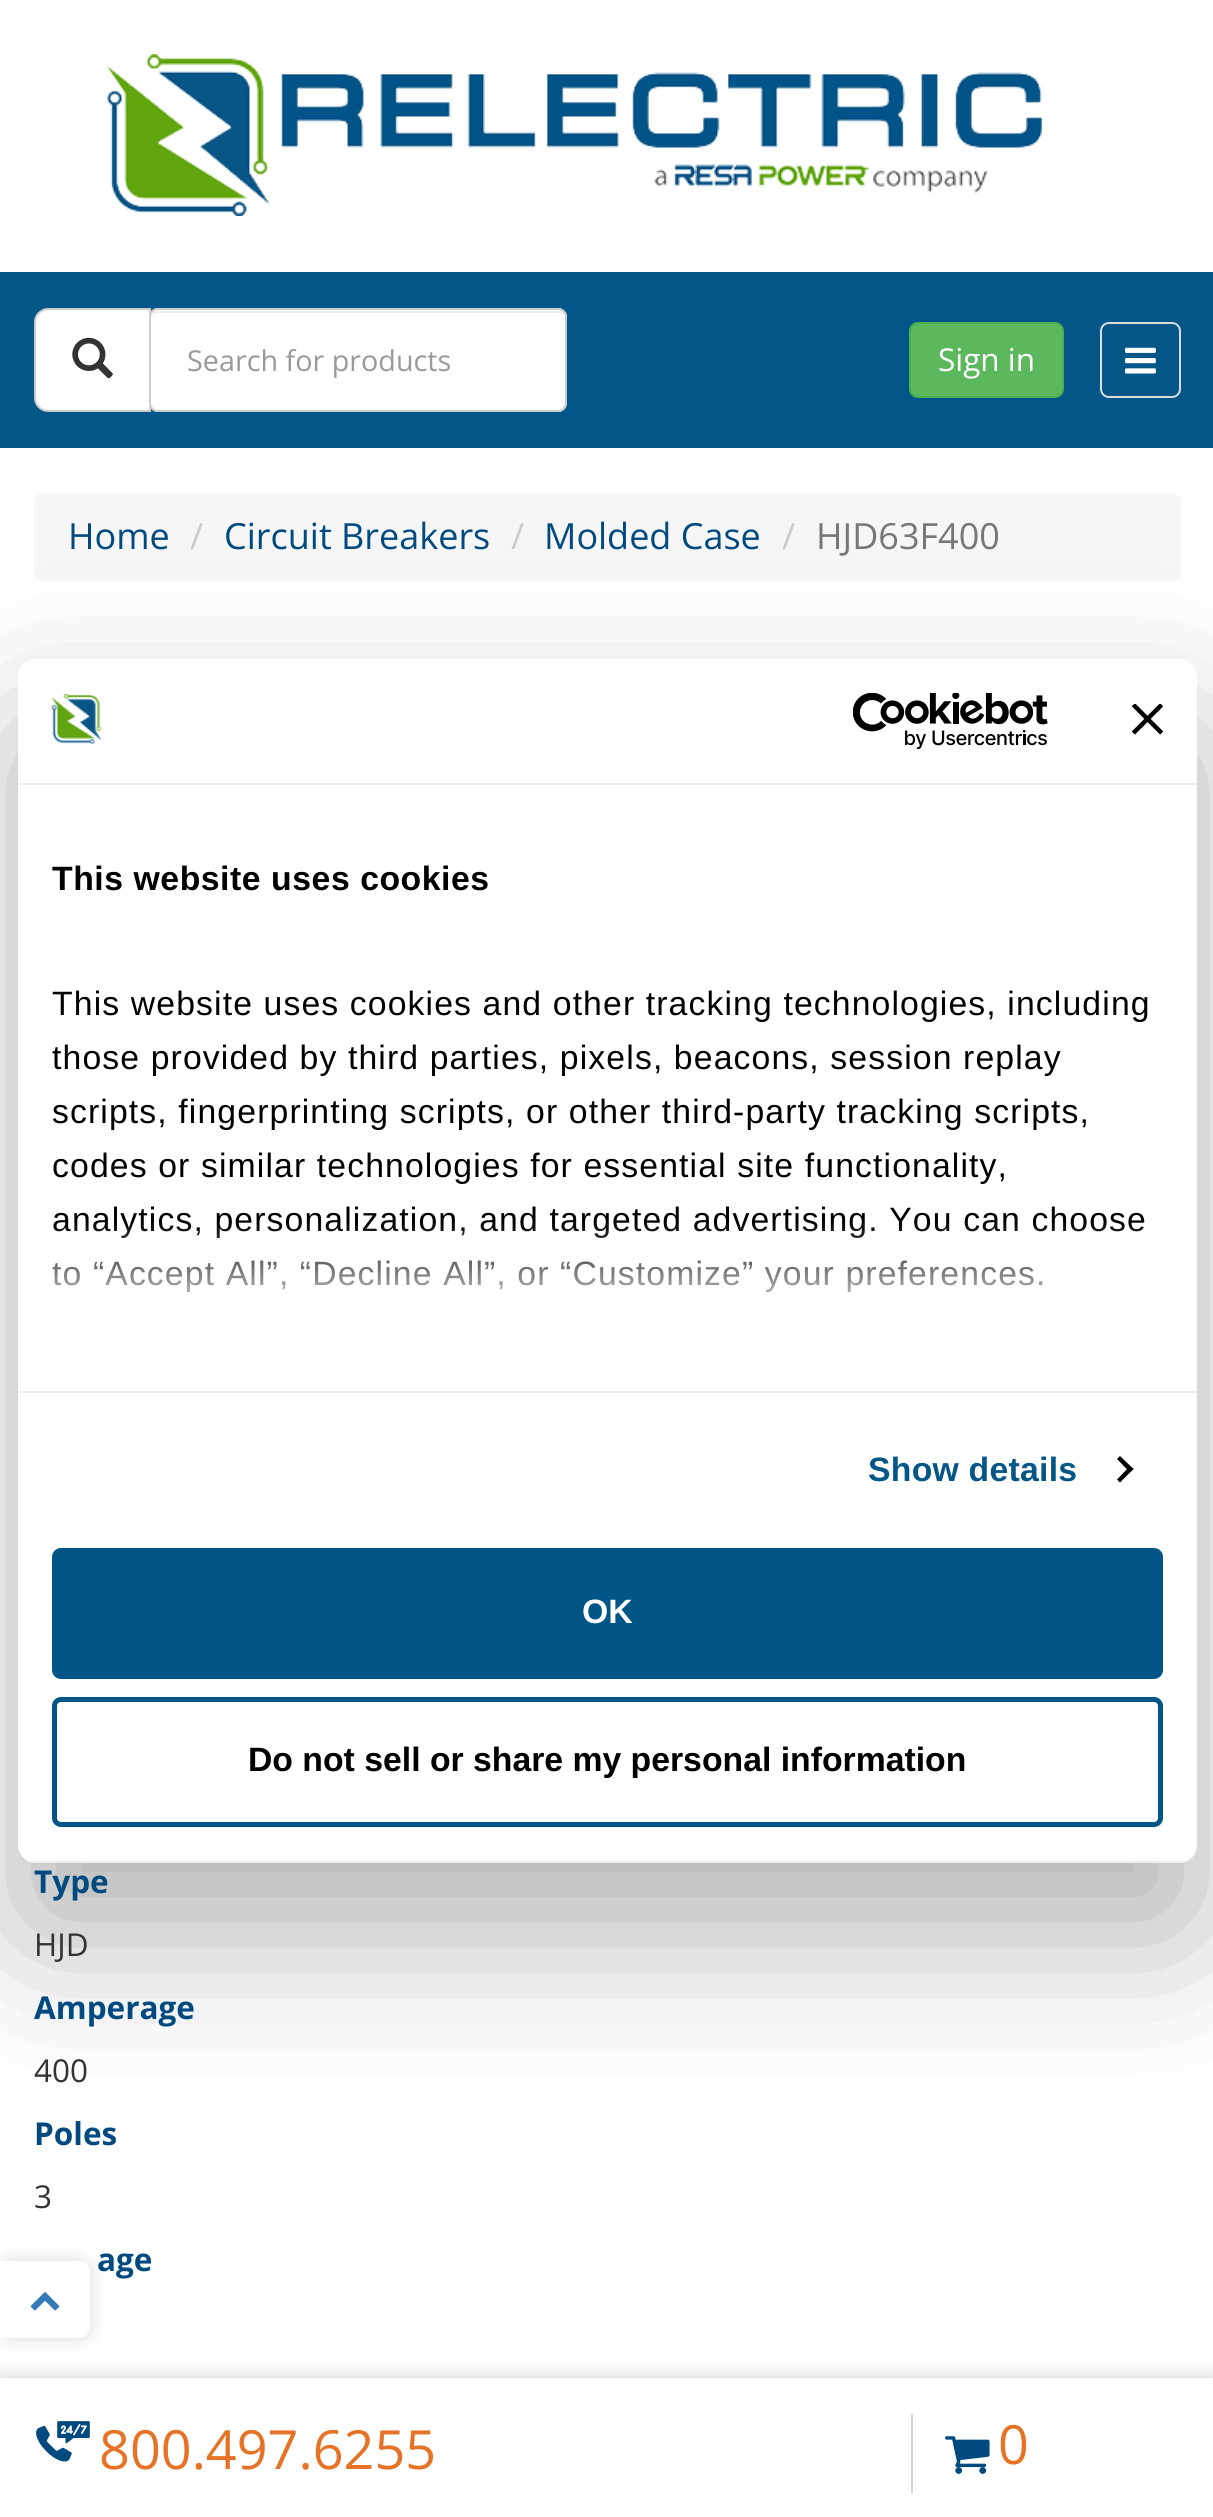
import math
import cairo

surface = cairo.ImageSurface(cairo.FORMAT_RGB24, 1213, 2517)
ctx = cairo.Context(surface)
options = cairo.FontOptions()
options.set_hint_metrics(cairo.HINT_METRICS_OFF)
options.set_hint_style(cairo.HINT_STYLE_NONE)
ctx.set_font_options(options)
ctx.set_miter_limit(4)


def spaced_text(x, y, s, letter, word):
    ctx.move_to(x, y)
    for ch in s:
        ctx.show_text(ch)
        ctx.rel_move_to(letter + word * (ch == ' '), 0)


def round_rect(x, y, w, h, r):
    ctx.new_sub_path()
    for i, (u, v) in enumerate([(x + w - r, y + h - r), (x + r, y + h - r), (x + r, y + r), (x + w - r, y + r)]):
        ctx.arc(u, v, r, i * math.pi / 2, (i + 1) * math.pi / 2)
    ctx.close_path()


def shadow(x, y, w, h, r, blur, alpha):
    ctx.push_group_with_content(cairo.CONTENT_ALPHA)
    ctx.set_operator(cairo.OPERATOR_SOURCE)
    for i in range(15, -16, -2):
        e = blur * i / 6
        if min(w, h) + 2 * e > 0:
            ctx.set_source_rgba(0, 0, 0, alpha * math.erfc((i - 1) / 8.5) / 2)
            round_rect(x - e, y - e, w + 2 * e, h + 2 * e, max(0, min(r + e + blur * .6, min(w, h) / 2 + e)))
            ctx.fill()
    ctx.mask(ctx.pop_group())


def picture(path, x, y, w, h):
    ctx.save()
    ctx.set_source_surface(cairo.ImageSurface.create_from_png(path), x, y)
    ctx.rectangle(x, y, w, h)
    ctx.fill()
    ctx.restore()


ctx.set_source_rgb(1, 1, 1)
ctx.paint()
picture("img1.png", 106, 54, 936, 162)
ctx.set_source_rgb(0.012, 0.337, 0.533)
ctx.rectangle(0, 272, 1213, 176)
ctx.fill()
ctx.set_source_rgb(1, 1, 1)
ctx.new_path()
ctx.move_to(48, 309)
ctx.line_to(150, 309)
ctx.line_to(150, 411)
ctx.line_to(48, 411)
ctx.curve_to(41, 411, 35, 405, 35, 398)
ctx.line_to(35, 322)
ctx.curve_to(35, 315, 41, 309, 48, 309)
ctx.close_path()
ctx.fill_preserve()
ctx.set_source_rgb(0.8, 0.8, 0.8)
ctx.stroke()
picture("img2.png", 72, 337, 41, 42)
ctx.set_source_rgb(1, 1, 1)
round_rect(149, 308, 418, 104, 9)
ctx.fill()
ctx.set_source_rgb(0.925, 0.925, 0.925)
ctx.new_path()
ctx.move_to(158, 313)
ctx.line_to(558, 313)
ctx.curve_to(562, 313, 565, 316, 565, 320)
ctx.curve_to(565, 316, 563, 311, 558, 311)
ctx.line_to(158, 311)
ctx.curve_to(153, 311, 151, 316, 151, 320)
ctx.curve_to(151, 316, 154, 313, 158, 313)
ctx.close_path()
ctx.fill()
round_rect(150, 309, 416, 102, 8)
ctx.set_source_rgb(0.8, 0.8, 0.8)
ctx.stroke()
ctx.select_font_face("Open Sans")
ctx.set_font_size(28.75)
ctx.set_source_rgb(0.6, 0.6, 0.6)
ctx.move_to(187, 371)
ctx.show_text("Search for products")
ctx.set_source_rgb(0.361, 0.722, 0.361)
round_rect(910, 323, 153, 74, 8)
ctx.fill_preserve()
ctx.set_source_rgb(0.298, 0.682, 0.298)
ctx.stroke()
ctx.set_font_size(31.5)
ctx.set_source_rgb(1, 1, 1)
ctx.move_to(938, 371)
ctx.show_text("Sign in")
round_rect(1101, 323, 79, 74, 8)
ctx.set_source_rgb(0.867, 0.867, 0.867)
ctx.stroke()
picture("img3.png", 1125, 347, 31, 27)
ctx.set_source_rgb(0.961, 0.961, 0.961)
round_rect(34, 493, 1147, 88, 9)
ctx.fill()
ctx.set_font_size(36)
ctx.set_source_rgb(0, 0.29, 0.502)
ctx.move_to(68, 549)
ctx.show_text("Home")
ctx.set_source_rgb(0.8, 0.8, 0.8)
ctx.move_to(190, 549)
ctx.show_text("/")
ctx.set_source_rgb(0, 0.29, 0.502)
ctx.move_to(224, 549)
ctx.show_text("Circuit Breakers")
ctx.set_source_rgb(0.8, 0.8, 0.8)
ctx.move_to(511, 549)
ctx.show_text("/")
ctx.set_source_rgb(0, 0.29, 0.502)
ctx.move_to(544, 549)
ctx.show_text("Molded Case")
ctx.set_source_rgb(0.8, 0.8, 0.8)
ctx.move_to(782, 549)
ctx.show_text("/")
ctx.set_source_rgb(0.467, 0.467, 0.467)
ctx.move_to(816, 549)
ctx.show_text("HJD63F400")
ctx.set_source_rgb(0, 0, 0)
shadow(18, 731, 1179, 1204, 18, 76.5, 0.3)
ctx.set_source_rgb(1, 1, 1)
round_rect(18, 659, 1179, 1204, 18)
ctx.fill()
ctx.set_source_rgb(0.933, 0.933, 0.933)
ctx.rectangle(18, 783, 1179, 2)
ctx.fill()
picture("img4.png", 51, 694, 51, 51)
picture("img5.png", 853, 693, 195, 56)
picture("img6.png", 1132, 704, 31, 31)
ctx.rectangle(18, 1391, 1179, 2)
ctx.fill()
ctx.select_font_face("Liberation Sans", cairo.FONT_SLANT_NORMAL, cairo.FONT_WEIGHT_BOLD)
ctx.set_font_size(33.75)
ctx.set_source_rgb(0, 0, 0)
spaced_text(52, 890, "This website uses cookies", 0.55, 0)
ctx.select_font_face("Liberation Sans")
spaced_text(52, 1015, "This website uses cookies and other tracking technologies, including", 1.12, 0)
spaced_text(52, 1069, "those provided by third parties, pixels, beacons, session replay", 1.12, 0)
spaced_text(52, 1123, "scripts, fingerprinting scripts, or other third-party tracking scripts,", 1.12, 0)
spaced_text(52, 1177, "codes or similar technologies for essential site functionality,", 1.12, 0)
spaced_text(52, 1231, "analytics, personalization, and targeted advertising. You can choose", 1.12, 0)
spaced_text(52, 1285, "to “Accept All”, “Decline All”, or “Customize” your preferences.", 1.12, 0)
gradient = cairo.LinearGradient(593, 1389, 593, 1221)
gradient.add_color_stop_rgba(0, 1, 1, 1, 1)
gradient.add_color_stop_rgba(0.5, 1, 1, 1, 0.8)
gradient.add_color_stop_rgba(1, 1, 1, 1, 0)
ctx.set_source(gradient)
ctx.rectangle(52, 1223, 1092, 69)
ctx.fill()
ctx.select_font_face("Liberation Sans", cairo.FONT_SLANT_NORMAL, cairo.FONT_WEIGHT_BOLD)
ctx.set_source_rgb(0.008, 0.341, 0.533)
spaced_text(868, 1481, "Show details", 0.25, 0)
ctx.set_source_rgb(0, 0, 0)
ctx.new_path()
ctx.move_to(1120, 1456)
ctx.line_to(1133.5, 1469)
ctx.line_to(1130, 1472.5)
ctx.line_to(1117, 1459)
ctx.close_path()
ctx.fill()
ctx.new_path()
ctx.move_to(1130, 1466)
ctx.line_to(1133.5, 1469)
ctx.line_to(1120, 1482.5)
ctx.line_to(1117, 1479.5)
ctx.close_path()
ctx.fill()
ctx.save()
round_rect(18, 659, 1179, 1204, 18)
ctx.clip()
ctx.set_source_rgb(0.933, 0.933, 0.933)
ctx.rectangle(28, 1861, 1159, 2)
ctx.fill()
ctx.restore()
ctx.set_source_rgb(0, 0.333, 0.529)
round_rect(54.5, 1550.5, 1106, 126, 6.5)
ctx.fill_preserve()
ctx.set_line_width(5)
ctx.stroke()
ctx.set_source_rgb(1, 1, 1)
ctx.move_to(582, 1623)
ctx.show_text("OK")
round_rect(54.5, 1699.5, 1106, 125, 6.5)
ctx.set_source_rgb(0, 0.333, 0.529)
ctx.stroke()
ctx.set_source_rgb(0, 0, 0)
ctx.move_to(248, 1771)
ctx.show_text("Do not sell or share my personal information")
ctx.select_font_face("Open Sans", cairo.FONT_SLANT_NORMAL, cairo.FONT_WEIGHT_BOLD)
ctx.set_font_size(31.5)
ctx.set_source_rgb(0, 0.29, 0.502)
ctx.move_to(34, 1893)
ctx.show_text("Type")
ctx.select_font_face("Open Sans")
ctx.set_source_rgb(0.2, 0.2, 0.2)
ctx.move_to(34, 1956)
ctx.show_text("HJD")
ctx.select_font_face("Open Sans", cairo.FONT_SLANT_NORMAL, cairo.FONT_WEIGHT_BOLD)
ctx.set_source_rgb(0, 0.29, 0.502)
ctx.move_to(34, 2019)
ctx.show_text("Amperage")
ctx.select_font_face("Open Sans")
ctx.set_source_rgb(0.2, 0.2, 0.2)
ctx.move_to(34, 2082)
ctx.show_text("400")
ctx.select_font_face("Open Sans", cairo.FONT_SLANT_NORMAL, cairo.FONT_WEIGHT_BOLD)
ctx.set_source_rgb(0, 0.29, 0.502)
ctx.move_to(34, 2145)
ctx.show_text("Poles")
ctx.select_font_face("Open Sans")
ctx.set_source_rgb(0.2, 0.2, 0.2)
ctx.move_to(34, 2208)
ctx.show_text("3")
ctx.select_font_face("Open Sans", cairo.FONT_SLANT_NORMAL, cairo.FONT_WEIGHT_BOLD)
ctx.set_source_rgb(0, 0.29, 0.502)
ctx.move_to(97, 2271)
ctx.show_text("age")
ctx.set_source_rgb(0, 0, 0)
shadow(0, 2261, 90, 77, 11, 9, 0.15)
ctx.set_source_rgb(1, 1, 1)
ctx.new_path()
ctx.move_to(0, 2261)
ctx.line_to(79, 2261)
ctx.curve_to(85, 2261, 90, 2266, 90, 2272)
ctx.line_to(90, 2327)
ctx.curve_to(90, 2333, 85, 2338, 79, 2338)
ctx.line_to(0, 2338)
ctx.close_path()
ctx.fill()
picture("img7.png", 30, 2292, 30, 19)
ctx.set_source_rgb(0, 0, 0)
shadow(0, 2378, 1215, 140, 0, 9, 0.2)
ctx.set_source_rgb(1, 1, 1)
ctx.rectangle(0, 2378, 1213, 139)
ctx.fill()
picture("img8.png", 36, 2421, 54, 41)
ctx.select_font_face("Open Sans")
ctx.set_font_size(54)
ctx.set_source_rgb(0.902, 0.447, 0.145)
ctx.move_to(99, 2469)
ctx.show_text("800.497.6255")
ctx.set_source_rgb(0.827, 0.827, 0.827)
ctx.rectangle(911, 2414, 2, 79)
ctx.fill()
picture("img9.png", 945, 2436, 45, 38)
ctx.set_source_rgb(0.902, 0.447, 0.145)
ctx.move_to(998, 2464)
ctx.show_text("0")
surface.write_to_png("page.png")
